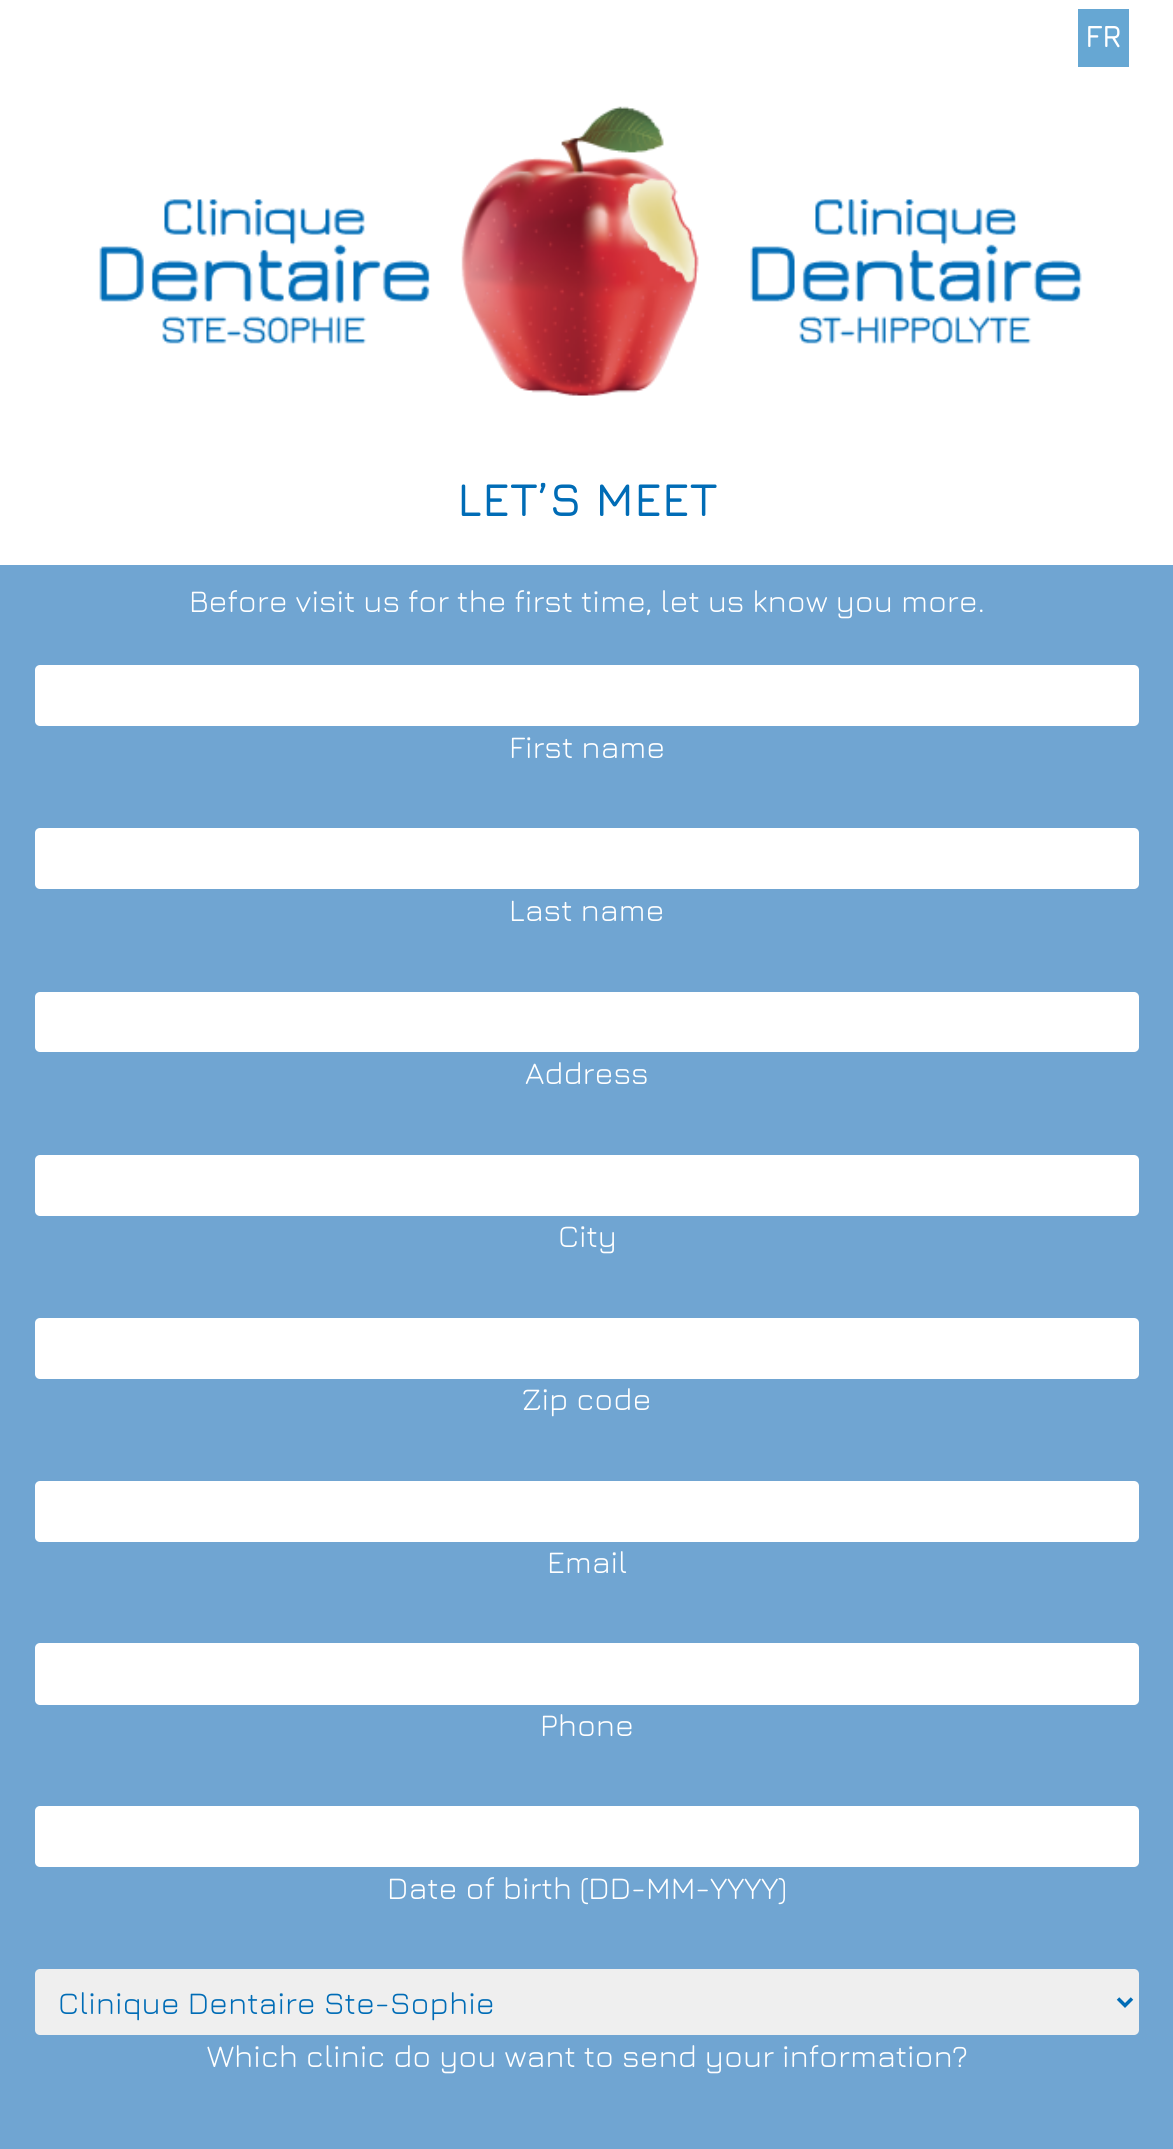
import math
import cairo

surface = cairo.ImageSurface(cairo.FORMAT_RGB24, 1173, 2149)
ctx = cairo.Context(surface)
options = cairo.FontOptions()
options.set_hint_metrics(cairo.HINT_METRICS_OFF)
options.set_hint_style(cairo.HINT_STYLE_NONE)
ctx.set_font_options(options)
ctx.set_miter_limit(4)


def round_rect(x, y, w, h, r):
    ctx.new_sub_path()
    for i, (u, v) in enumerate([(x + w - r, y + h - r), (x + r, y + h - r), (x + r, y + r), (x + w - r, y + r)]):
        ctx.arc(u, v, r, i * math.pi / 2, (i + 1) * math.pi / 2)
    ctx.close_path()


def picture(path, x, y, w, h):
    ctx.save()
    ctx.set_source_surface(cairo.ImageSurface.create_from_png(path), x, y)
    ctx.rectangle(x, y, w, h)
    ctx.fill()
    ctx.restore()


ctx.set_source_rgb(1, 1, 1)
ctx.paint()
ctx.set_source_rgb(0.4, 0.655, 0.827)
ctx.rectangle(1078, 9, 51, 58)
ctx.fill()
ctx.select_font_face("Jura SemiBold")
ctx.set_font_size(31.5)
ctx.set_source_rgb(1, 1, 1)
ctx.move_to(1085, 47)
ctx.show_text("FR")
picture("img1.png", 99, 106, 983, 290)
ctx.set_font_size(47.25)
ctx.set_source_rgb(0, 0.424, 0.714)
ctx.move_to(457, 516)
ctx.show_text("LET’S MEET")
ctx.set_source_rgb(0.439, 0.647, 0.824)
ctx.rectangle(0, 565, 1173, 1584)
ctx.fill()
ctx.select_font_face("Jura")
ctx.set_font_size(31.5)
ctx.set_source_rgb(1, 1, 1)
ctx.move_to(189, 612)
ctx.show_text("Before visit us for the first time, let us know you more.")
round_rect(35, 665, 1104, 61, 5)
ctx.fill()
ctx.move_to(509, 758)
ctx.show_text("First name")
round_rect(35, 828, 1104, 61, 5)
ctx.fill()
ctx.move_to(509, 921)
ctx.show_text("Last name")
round_rect(35, 992, 1104, 60, 5)
ctx.fill()
ctx.move_to(525, 1084)
ctx.show_text("Address")
round_rect(35, 1155, 1104, 61, 5)
ctx.fill()
ctx.move_to(558, 1247)
ctx.show_text("City")
round_rect(35, 1318, 1104, 61, 5)
ctx.fill()
ctx.move_to(522, 1410)
ctx.show_text("Zip code")
round_rect(35, 1481, 1104, 61, 5)
ctx.fill()
ctx.move_to(547, 1573)
ctx.show_text("Email")
round_rect(35, 1643, 1104, 62, 5)
ctx.fill()
ctx.move_to(540, 1736)
ctx.show_text("Phone")
round_rect(35, 1806, 1104, 61, 5)
ctx.fill()
ctx.move_to(387, 1899)
ctx.show_text("Date of birth (DD-MM-YYYY)")
ctx.set_source_rgb(0.937, 0.937, 0.937)
round_rect(35, 1969, 1104, 66, 5)
ctx.fill()
ctx.new_path()
ctx.move_to(1118, 1998.5)
ctx.line_to(1125, 2005.5)
ctx.line_to(1132, 1998.5)
ctx.set_source_rgb(0, 0.424, 0.714)
ctx.set_line_width(3.5)
ctx.stroke()
ctx.move_to(58, 2014)
ctx.show_text("Clinique Dentaire Ste-Sophie")
ctx.set_source_rgb(1, 1, 1)
ctx.move_to(207, 2067)
ctx.show_text("Which clinic do you want to send your information?")
surface.write_to_png("page.png")
